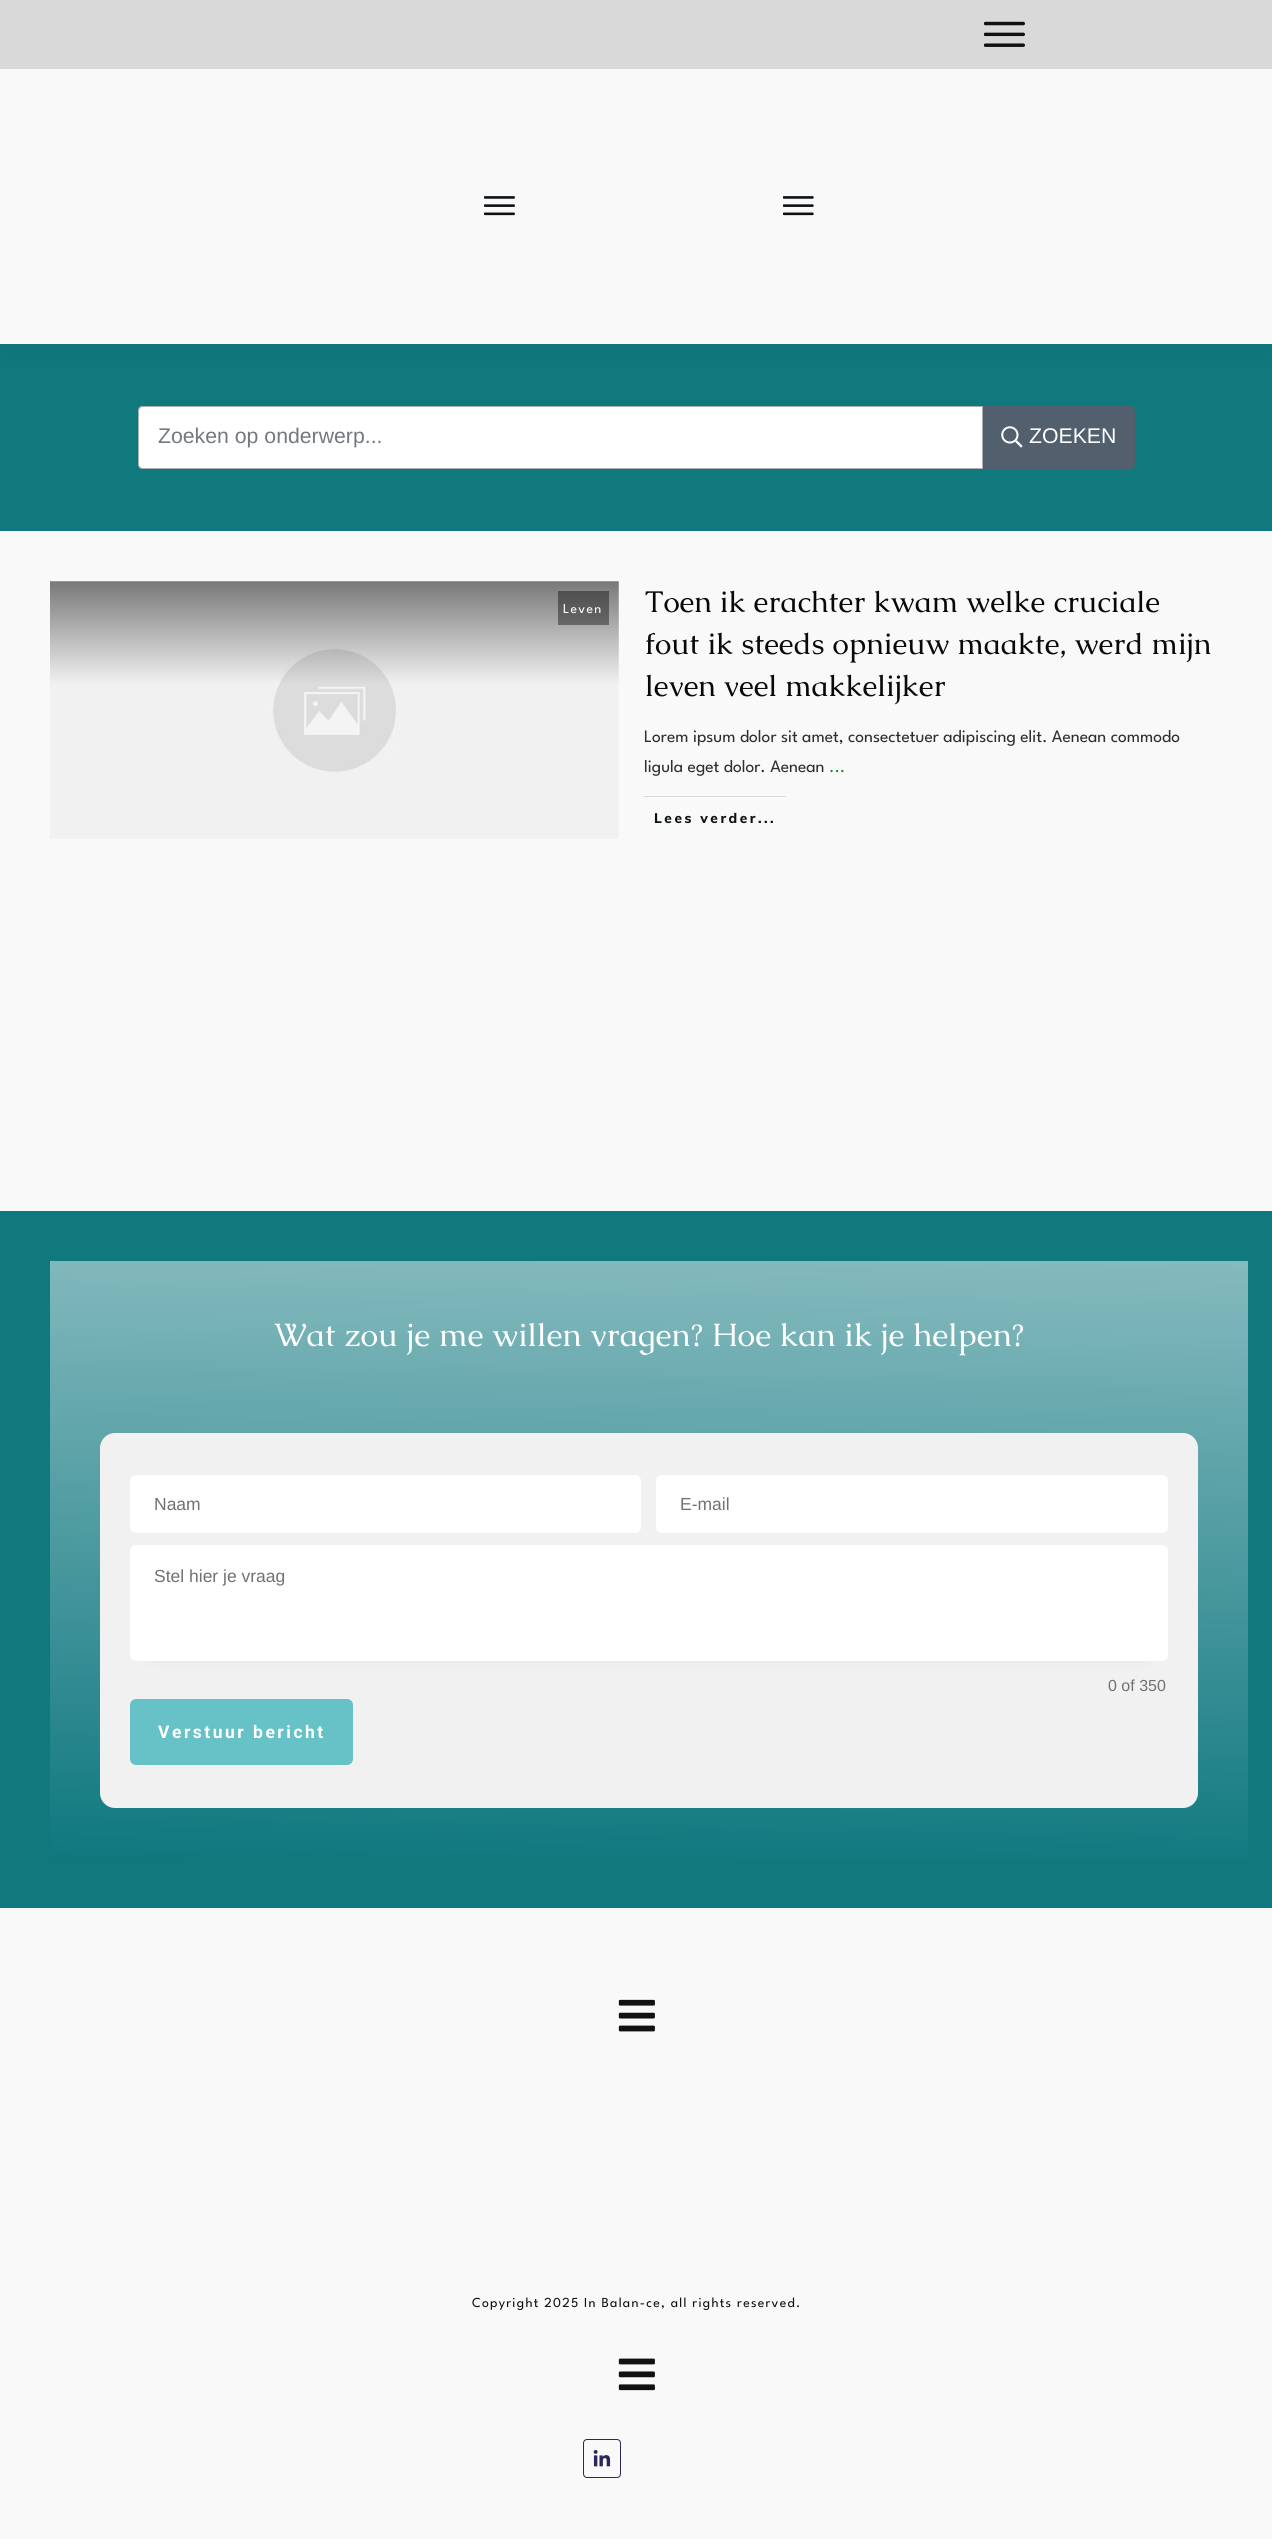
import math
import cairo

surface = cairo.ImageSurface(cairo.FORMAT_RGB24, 1272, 2539)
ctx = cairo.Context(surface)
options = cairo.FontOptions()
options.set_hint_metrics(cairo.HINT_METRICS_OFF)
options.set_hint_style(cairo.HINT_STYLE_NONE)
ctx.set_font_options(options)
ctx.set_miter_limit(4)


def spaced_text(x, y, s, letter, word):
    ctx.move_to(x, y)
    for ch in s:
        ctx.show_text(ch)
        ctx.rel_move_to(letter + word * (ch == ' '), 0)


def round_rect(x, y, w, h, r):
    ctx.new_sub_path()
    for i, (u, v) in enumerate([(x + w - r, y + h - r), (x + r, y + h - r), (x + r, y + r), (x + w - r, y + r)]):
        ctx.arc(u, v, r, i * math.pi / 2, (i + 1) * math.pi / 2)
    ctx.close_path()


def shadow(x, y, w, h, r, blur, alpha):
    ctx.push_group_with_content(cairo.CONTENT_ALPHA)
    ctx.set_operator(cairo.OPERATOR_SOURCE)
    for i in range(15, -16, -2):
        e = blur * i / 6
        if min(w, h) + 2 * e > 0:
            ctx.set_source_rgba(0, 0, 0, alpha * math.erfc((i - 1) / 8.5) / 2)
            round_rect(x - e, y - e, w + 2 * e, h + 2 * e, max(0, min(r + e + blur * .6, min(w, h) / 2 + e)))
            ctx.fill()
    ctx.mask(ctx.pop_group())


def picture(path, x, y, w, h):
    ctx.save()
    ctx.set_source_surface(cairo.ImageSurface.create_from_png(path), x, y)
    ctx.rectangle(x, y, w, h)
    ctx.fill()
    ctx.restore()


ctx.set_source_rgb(0.973, 0.973, 0.973)
ctx.paint()
ctx.set_source_rgb(0.059, 0.475, 0.494)
ctx.rectangle(0, 344, 1272, 187)
ctx.fill()
ctx.set_source_rgb(0, 0, 0)
shadow(0, 3, 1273, 343, 0, 19, 0.05)
ctx.set_source_rgb(0.973, 0.973, 0.973)
ctx.rectangle(0, 69, 1272, 275)
ctx.fill()
ctx.set_source_rgb(0.851, 0.851, 0.851)
ctx.rectangle(0, 0, 1272, 69)
ctx.fill()
picture("img1.png", 984, 21, 41, 26)
picture("img2.png", 484, 196, 31, 20)
picture("img3.png", 783, 196, 31, 20)
ctx.set_source_rgb(1, 1, 1)
ctx.new_path()
ctx.move_to(143, 406)
ctx.line_to(983, 406)
ctx.line_to(983, 469)
ctx.line_to(143, 469)
ctx.curve_to(140, 469, 138, 467, 138, 464)
ctx.line_to(138, 411)
ctx.curve_to(138, 408, 140, 406, 143, 406)
ctx.close_path()
ctx.fill()
ctx.new_path()
ctx.move_to(143, 406.5)
ctx.line_to(982.5, 406.5)
ctx.line_to(982.5, 468.5)
ctx.line_to(143, 468.5)
ctx.curve_to(140.5, 468.5, 138.5, 466.5, 138.5, 464)
ctx.line_to(138.5, 411)
ctx.curve_to(138.5, 408.5, 140.5, 406.5, 143, 406.5)
ctx.close_path()
ctx.set_source_rgba(0.322, 0.376, 0.427, 0.5)
ctx.set_line_width(1)
ctx.stroke()
ctx.select_font_face("Liberation Sans")
ctx.set_font_size(21.25)
ctx.set_source_rgb(0.451, 0.471, 0.498)
ctx.move_to(158, 443)
ctx.show_text("Zoeken op onderwerp...")
ctx.set_source_rgb(0.322, 0.376, 0.427)
ctx.new_path()
ctx.move_to(983, 406)
ctx.line_to(1130, 406)
ctx.curve_to(1133, 406, 1135, 408, 1135, 411)
ctx.line_to(1135, 464)
ctx.curve_to(1135, 467, 1133, 469, 1130, 469)
ctx.line_to(983, 469)
ctx.close_path()
ctx.fill()
picture("img4.png", 1001, 426, 22, 22)
ctx.set_source_rgb(1, 1, 1)
ctx.move_to(1029, 443)
ctx.show_text("ZOEKEN")
picture("img5.png", 50, 581, 569, 258)
ctx.set_source_rgba(0, 0, 0, 0.4)
ctx.rectangle(558, 591, 51, 34)
ctx.fill()
ctx.select_font_face("League Spartan")
ctx.set_font_size(13.75)
ctx.set_source_rgb(1, 1, 1)
spaced_text(563, 613, "Leven", 1.25, 0)
ctx.select_font_face("Caudex")
ctx.set_font_size(30)
ctx.set_source_rgb(0.039, 0.039, 0.039)
ctx.move_to(645, 612)
ctx.show_text("Toen ik erachter kwam welke cruciale")
ctx.move_to(645, 654)
ctx.show_text("fout ik steeds opnieuw maakte, werd mijn")
ctx.move_to(645, 696)
ctx.show_text("leven veel makkelijker")
ctx.select_font_face("League Spartan")
ctx.set_font_size(17.5)
ctx.set_source_rgb(0.18, 0.18, 0.18)
ctx.move_to(644, 742)
ctx.show_text("Lorem ipsum dolor sit amet, consectetuer adipiscing elit. Aenean commodo")
ctx.move_to(644, 772)
ctx.show_text("ligula eget dolor. Aenean")
ctx.set_source_rgb(0, 0.573, 0.259)
ctx.move_to(829, 772)
ctx.show_text("...")
ctx.set_source_rgb(0.855, 0.855, 0.855)
ctx.rectangle(644, 796, 142, 1)
ctx.fill()
ctx.select_font_face("Muli ExtraBold")
ctx.set_font_size(13.75)
ctx.set_source_rgb(0.047, 0.067, 0.082)
spaced_text(654, 823, "Lees verder...", 2.5, 0)
ctx.set_source_rgb(0.059, 0.475, 0.494)
ctx.rectangle(0, 1211, 1272, 697)
ctx.fill()
gradient = cairo.LinearGradient(654, 1251, 643, 1868)
gradient.add_color_stop_rgba(0, 0.522, 0.729, 0.745, 1)
gradient.add_color_stop_rgba(1, 0.059, 0.471, 0.498, 1)
ctx.set_source(gradient)
ctx.rectangle(50, 1261, 1198, 597)
ctx.fill()
ctx.select_font_face("Caudex")
ctx.set_font_size(32.5)
ctx.set_source_rgb(1, 1, 1)
ctx.move_to(274, 1346)
ctx.show_text("Wat zou je me willen vragen? Hoe kan ik je helpen?")
ctx.set_source_rgb(0.945, 0.945, 0.945)
round_rect(100, 1433, 1098, 375, 15)
ctx.fill()
ctx.set_source_rgb(1, 1, 1)
round_rect(130, 1475, 511, 58, 6)
ctx.fill()
ctx.select_font_face("Liberation Sans")
ctx.set_font_size(17.5)
ctx.set_source_rgb(0.443, 0.443, 0.443)
ctx.move_to(154, 1510)
ctx.show_text("Naam")
ctx.set_source_rgb(1, 1, 1)
round_rect(656, 1475, 512, 58, 6)
ctx.fill()
ctx.set_source_rgb(0.443, 0.443, 0.443)
ctx.move_to(680, 1510)
ctx.show_text("E-mail")
ctx.set_source_rgb(0, 0, 0)
shadow(153, 1578, 992, 71, 0, 9.5, 0.27)
ctx.set_source_rgb(1, 1, 1)
round_rect(130, 1545, 1038, 116, 6)
ctx.fill()
ctx.set_source_rgb(0.443, 0.443, 0.443)
ctx.move_to(154, 1582)
ctx.show_text("Stel hier je vraag")
ctx.set_font_size(16)
ctx.move_to(1108, 1691)
ctx.show_text("0 of 350")
ctx.set_source_rgb(0.4, 0.761, 0.776)
round_rect(130, 1699, 223, 66, 6)
ctx.fill()
ctx.select_font_face("Roboto", cairo.FONT_SLANT_NORMAL, cairo.FONT_WEIGHT_BOLD)
ctx.set_font_size(17.5)
ctx.set_source_rgb(1, 1, 1)
spaced_text(158, 1738, "Verstuur bericht", 2.5, 0)
picture("img6.png", 618, 1999, 37, 33)
ctx.select_font_face("League Spartan")
ctx.set_font_size(13.75)
ctx.set_source_rgb(0.047, 0.067, 0.082)
spaced_text(472, 2307, "Copyright 2025 In Balan-ce, all rights reserved.", 1.25, 0)
picture("img7.png", 618, 2358, 37, 33)
round_rect(583.5, 2439.5, 37, 38, 3.5)
ctx.set_source_rgb(0.169, 0.153, 0.361)
ctx.stroke()
picture("img8.png", 593, 2449, 18, 18)
surface.write_to_png("page.png")
